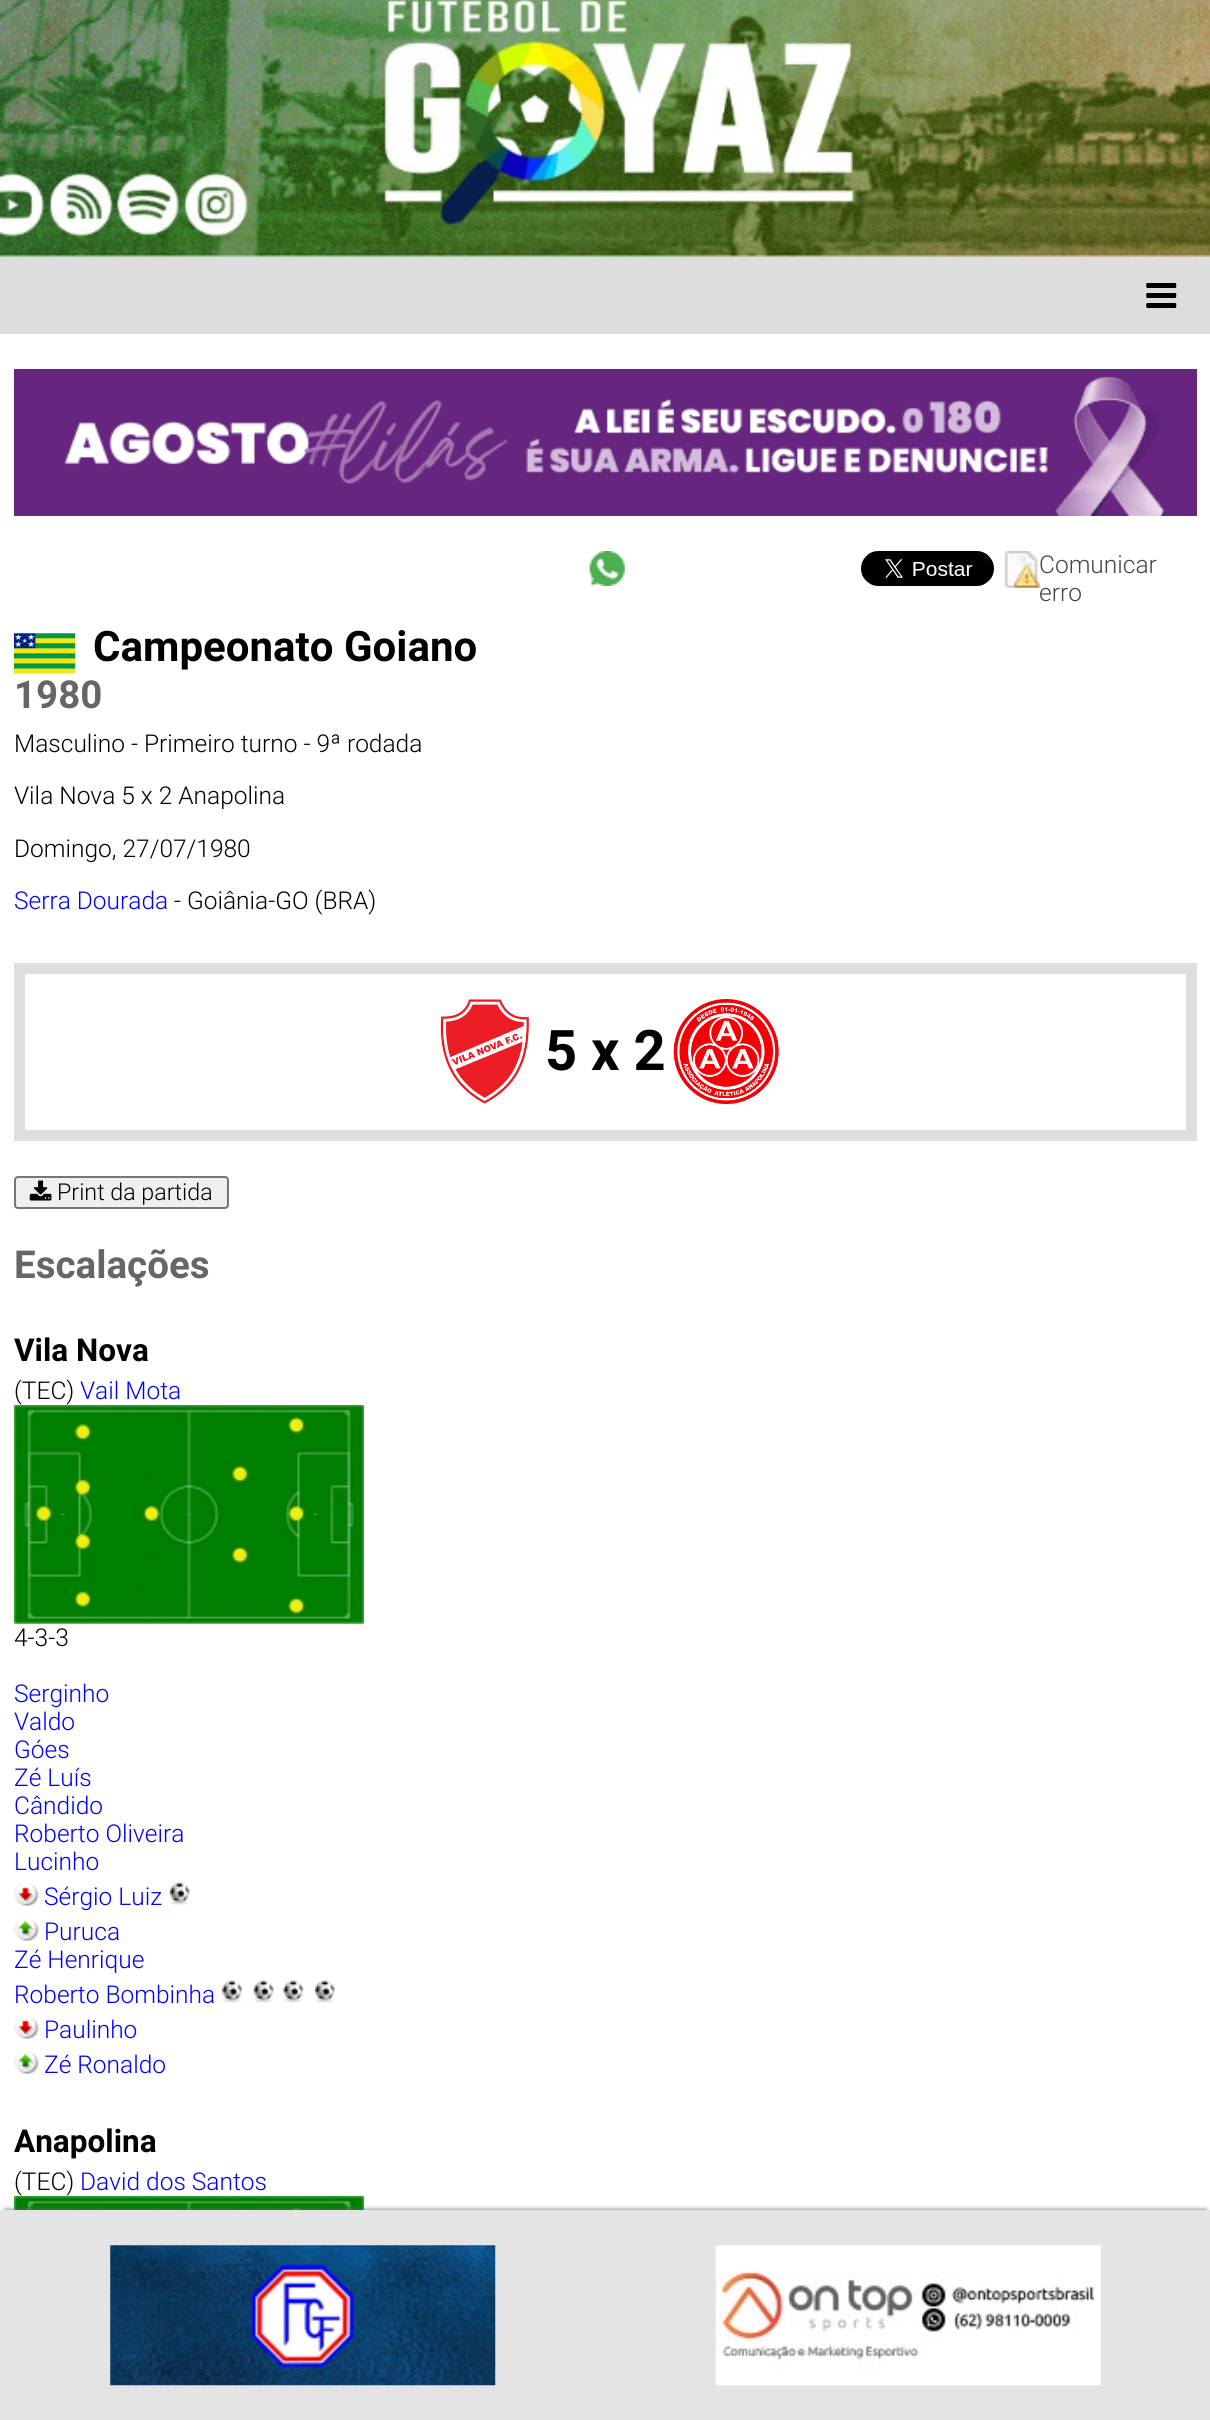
import math
import cairo

surface = cairo.ImageSurface(cairo.FORMAT_RGB24, 1210, 2420)
ctx = cairo.Context(surface)
options = cairo.FontOptions()
options.set_hint_metrics(cairo.HINT_METRICS_OFF)
options.set_hint_style(cairo.HINT_STYLE_NONE)
ctx.set_font_options(options)
ctx.set_miter_limit(4)


def round_rect(x, y, w, h, r):
    ctx.new_sub_path()
    for i, (u, v) in enumerate([(x + w - r, y + h - r), (x + r, y + h - r), (x + r, y + r), (x + w - r, y + r)]):
        ctx.arc(u, v, r, i * math.pi / 2, (i + 1) * math.pi / 2)
    ctx.close_path()


def shadow(x, y, w, h, r, blur, alpha):
    ctx.push_group_with_content(cairo.CONTENT_ALPHA)
    ctx.set_operator(cairo.OPERATOR_SOURCE)
    for i in range(15, -16, -2):
        e = blur * i / 6
        if min(w, h) + 2 * e > 0:
            ctx.set_source_rgba(0, 0, 0, alpha * math.erfc((i - 1) / 8.5) / 2)
            round_rect(x - e, y - e, w + 2 * e, h + 2 * e, max(0, min(r + e + blur * .6, min(w, h) / 2 + e)))
            ctx.fill()
    ctx.mask(ctx.pop_group())


def picture(path, x, y, w, h):
    ctx.save()
    ctx.set_source_surface(cairo.ImageSurface.create_from_png(path), x, y)
    ctx.rectangle(x, y, w, h)
    ctx.fill()
    ctx.restore()


ctx.set_source_rgb(1, 1, 1)
ctx.paint()
picture("img1.png", 0, 0, 1210, 257)
ctx.set_source_rgb(0.867, 0.867, 0.867)
ctx.rectangle(0, 257, 1210, 77)
ctx.fill()
picture("img2.png", 1146, 283, 31, 25)
picture("img3.png", 14, 369, 1183, 147)
picture("img4.png", 589, 551, 36, 35)
picture("img5.png", 861, 551, 133, 35)
picture("img6.png", 1004, 551, 36, 37)
ctx.select_font_face("Roboto Light")
ctx.set_font_size(24.5)
ctx.set_source_rgb(0.271, 0.271, 0.271)
ctx.move_to(1039, 573)
ctx.show_text("Comunicar")
ctx.move_to(1039, 601)
ctx.show_text("erro")
picture("img7.png", 14, 633, 62, 41)
ctx.select_font_face("Roboto", cairo.FONT_SLANT_NORMAL, cairo.FONT_WEIGHT_BOLD)
ctx.set_font_size(42)
ctx.set_source_rgb(0, 0, 0)
ctx.move_to(93, 661)
ctx.show_text("Campeonato Goiano")
ctx.set_font_size(38.5)
ctx.set_source_rgb(0.4, 0.4, 0.4)
ctx.move_to(14, 708)
ctx.show_text("1980")
ctx.select_font_face("Roboto Light")
ctx.set_font_size(24.5)
ctx.set_source_rgb(0, 0, 0)
ctx.move_to(14, 752)
ctx.show_text("Masculino - Primeiro turno - 9ª rodada")
ctx.move_to(14, 804)
ctx.show_text("Vila Nova 5 x 2 Anapolina")
ctx.move_to(14, 857)
ctx.show_text("Domingo, 27/07/1980")
ctx.set_source_rgb(0, 0, 1)
ctx.move_to(14, 909)
ctx.show_text("Serra Dourada")
ctx.set_source_rgb(0, 0, 0)
ctx.move_to(174, 909)
ctx.show_text("- Goiânia-GO (BRA)")
ctx.rectangle(19.5, 968.5, 1172, 167)
ctx.set_source_rgb(0.867, 0.871, 0.867)
ctx.set_line_width(11)
ctx.stroke()
picture("img8.png", 440, 999, 89, 105)
ctx.select_font_face("Roboto", cairo.FONT_SLANT_NORMAL, cairo.FONT_WEIGHT_BOLD)
ctx.set_font_size(56)
ctx.set_source_rgb(0, 0, 0)
ctx.move_to(545, 1070)
ctx.show_text("5 x 2")
picture("img9.png", 673, 999, 106, 105)
ctx.set_source_rgb(0.937, 0.937, 0.937)
round_rect(15, 1177, 213, 31, 3)
ctx.fill_preserve()
ctx.set_source_rgb(0.463, 0.463, 0.463)
ctx.set_line_width(2)
ctx.stroke()
picture("img10.png", 29, 1180, 23, 21)
ctx.select_font_face("Roboto Light")
ctx.set_font_size(23.25)
ctx.set_source_rgb(0, 0, 0)
ctx.move_to(57, 1200)
ctx.show_text("Print da partida")
ctx.select_font_face("Roboto", cairo.FONT_SLANT_NORMAL, cairo.FONT_WEIGHT_BOLD)
ctx.set_font_size(38.5)
ctx.set_source_rgb(0.4, 0.4, 0.4)
ctx.move_to(14, 1278)
ctx.show_text("Escalações")
ctx.set_font_size(31.5)
ctx.set_source_rgb(0, 0, 0)
ctx.move_to(14, 1361)
ctx.show_text("Vila Nova")
ctx.select_font_face("Roboto Light")
ctx.set_font_size(24.5)
ctx.move_to(14, 1399)
ctx.show_text("(TEC)")
ctx.set_source_rgb(0, 0, 1)
ctx.move_to(80, 1399)
ctx.show_text("Vail Mota")
picture("img11.png", 14, 1405, 350, 219)
ctx.set_source_rgb(0, 0, 0)
ctx.move_to(14, 1646)
ctx.show_text("4-3-3")
ctx.set_source_rgb(0, 0, 1)
ctx.move_to(14, 1702)
ctx.show_text("Serginho")
ctx.move_to(14, 1730)
ctx.show_text("Valdo")
ctx.move_to(14, 1758)
ctx.show_text("Góes")
ctx.move_to(14, 1786)
ctx.show_text("Zé Luís")
ctx.move_to(14, 1814)
ctx.show_text("Cândido")
ctx.move_to(14, 1842)
ctx.show_text("Roberto Oliveira")
ctx.move_to(14, 1870)
ctx.show_text("Lucinho")
picture("img12.png", 14, 1883, 25, 23)
ctx.move_to(44, 1905)
ctx.show_text("Sérgio Luiz")
picture("img13.png", 169, 1882, 21, 23)
picture("img14.png", 14, 1918, 25, 23)
ctx.move_to(44, 1940)
ctx.show_text("Puruca")
ctx.move_to(14, 1968)
ctx.show_text("Zé Henrique")
ctx.move_to(14, 2003)
ctx.show_text("Roberto Bombinha")
picture("img15.png", 222, 1980, 20, 23)
picture("img16.png", 253, 1980, 21, 23)
picture("img17.png", 283, 1980, 21, 23)
picture("img18.png", 315, 1980, 20, 23)
picture("img19.png", 14, 2016, 25, 23)
ctx.move_to(44, 2038)
ctx.show_text("Paulinho")
picture("img14.png", 14, 2051, 25, 23)
ctx.move_to(44, 2073)
ctx.show_text("Zé Ronaldo")
ctx.select_font_face("Roboto", cairo.FONT_SLANT_NORMAL, cairo.FONT_WEIGHT_BOLD)
ctx.set_font_size(31.5)
ctx.set_source_rgb(0, 0, 0)
ctx.move_to(14, 2152)
ctx.show_text("Anapolina")
ctx.select_font_face("Roboto Light")
ctx.set_font_size(24.5)
ctx.move_to(14, 2190)
ctx.show_text("(TEC)")
ctx.set_source_rgb(0, 0, 1)
ctx.move_to(80, 2190)
ctx.show_text("David dos Santos")
picture("img20.png", 14, 2196, 350, 14)
ctx.set_source_rgb(0.4, 0.4, 0.4)
shadow(5, 2210, 1201, 200, 0, 2.5, 1)
ctx.set_source_rgb(0.894, 0.894, 0.894)
ctx.rectangle(0, 2210, 1210, 210)
ctx.fill()
picture("img21.png", 110, 2245, 386, 141)
picture("img22.png", 715, 2245, 386, 141)
surface.write_to_png("page.png")
